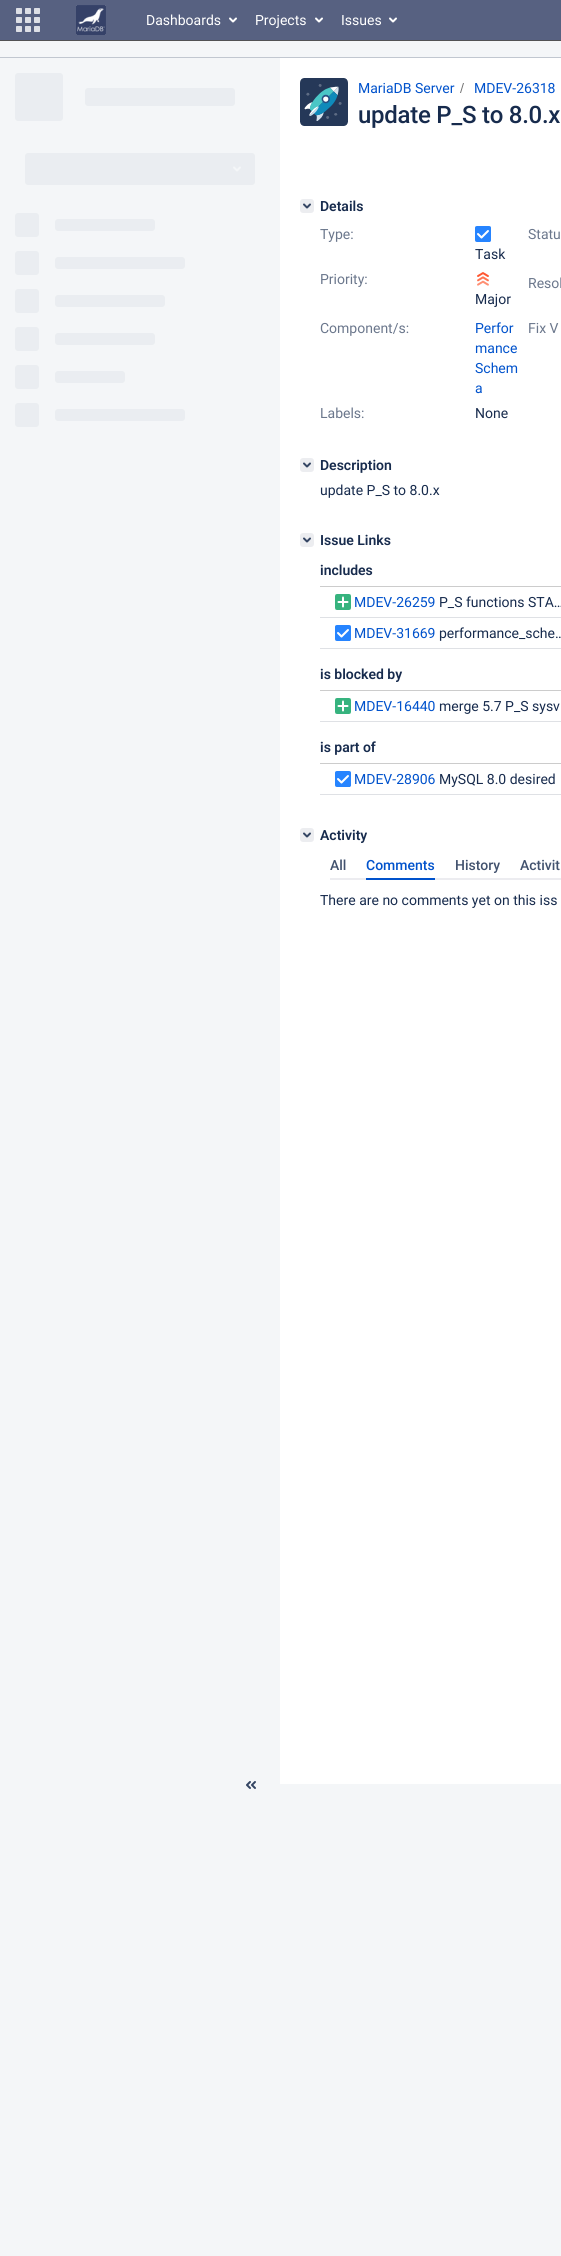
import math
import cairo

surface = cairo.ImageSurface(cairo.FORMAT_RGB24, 561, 2256)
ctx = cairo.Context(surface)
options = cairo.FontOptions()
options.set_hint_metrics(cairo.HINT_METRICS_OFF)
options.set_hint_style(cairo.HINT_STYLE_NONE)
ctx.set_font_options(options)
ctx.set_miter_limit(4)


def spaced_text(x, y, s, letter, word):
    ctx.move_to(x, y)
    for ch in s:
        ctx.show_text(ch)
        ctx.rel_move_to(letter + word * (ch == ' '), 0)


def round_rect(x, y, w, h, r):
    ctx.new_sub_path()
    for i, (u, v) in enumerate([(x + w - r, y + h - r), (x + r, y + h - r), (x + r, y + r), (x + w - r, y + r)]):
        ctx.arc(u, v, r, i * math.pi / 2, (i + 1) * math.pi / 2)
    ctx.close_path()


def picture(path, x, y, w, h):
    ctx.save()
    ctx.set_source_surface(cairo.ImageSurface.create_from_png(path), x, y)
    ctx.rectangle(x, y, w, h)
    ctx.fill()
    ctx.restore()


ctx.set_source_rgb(0.957, 0.961, 0.969)
ctx.paint()
ctx.set_source_rgb(0.341, 0.38, 0.506)
ctx.rectangle(0, 0, 561, 40)
ctx.fill()
ctx.set_source_rgb(0.322, 0.322, 0.329)
ctx.rectangle(0, 40, 561, 1)
ctx.fill()
picture("img1.png", 16, 8, 24, 24)
picture("img2.png", 76, 5, 30, 30)
ctx.select_font_face("Roboto")
ctx.set_font_size(14)
ctx.set_source_rgb(1, 1, 1)
ctx.move_to(146, 25)
ctx.show_text("Dashboards")
picture("img3.png", 229, 17, 8, 6)
ctx.move_to(255, 25)
ctx.show_text("Projects")
picture("img3.png", 315, 17, 8, 6)
ctx.move_to(341, 25)
ctx.show_text("Issues")
picture("img3.png", 389, 17, 8, 6)
ctx.set_source_rgb(0.757, 0.78, 0.816)
ctx.rectangle(0, 57, 561, 1)
ctx.fill()
picture("img4.png", 15, 73, 240, 354)
picture("img5.png", 246, 1781, 10, 8)
ctx.set_source_rgb(1, 1, 1)
ctx.rectangle(280, 58, 281, 1726)
ctx.fill()
picture("img6.png", 300, 78, 48, 48)
ctx.set_source_rgb(0, 0.322, 0.8)
ctx.move_to(358, 93)
ctx.show_text("MariaDB Server")
ctx.set_source_rgb(0.439, 0.439, 0.439)
ctx.new_path()
ctx.move_to(461, 93)
ctx.line_to(464, 83)
ctx.line_to(463, 83)
ctx.line_to(460, 93)
ctx.close_path()
ctx.fill()
ctx.set_source_rgb(0, 0.322, 0.8)
ctx.move_to(474, 93)
ctx.show_text("MDEV-26318")
ctx.select_font_face("Roboto Medium")
ctx.set_font_size(24)
ctx.set_source_rgb(0.09, 0.169, 0.302)
spaced_text(358, 123, "update P_S to 8.0.x", -0.25, 0)
ctx.set_source_rgb(0.922, 0.929, 0.941)
round_rect(300, 199, 14, 14, 3)
ctx.fill()
picture("img7.png", 303, 203, 8, 6)
ctx.select_font_face("Roboto SemiBold")
ctx.set_font_size(14)
ctx.set_source_rgb(0.09, 0.169, 0.302)
ctx.move_to(320, 211)
ctx.show_text("Details")
ctx.select_font_face("Roboto")
ctx.set_source_rgb(0.42, 0.467, 0.549)
ctx.move_to(320, 239)
ctx.show_text("Type:")
picture("img8.png", 475, 226, 16, 16)
ctx.set_source_rgb(0.09, 0.169, 0.302)
ctx.move_to(475, 259)
ctx.show_text("Task")
ctx.set_source_rgb(0.42, 0.467, 0.549)
ctx.move_to(528, 239)
ctx.show_text("Statu")
ctx.move_to(320, 284)
ctx.show_text("Priority:")
picture("img9.png", 477, 272, 12, 14)
ctx.set_source_rgb(0.09, 0.169, 0.302)
ctx.move_to(475, 304)
ctx.show_text("Major")
ctx.set_source_rgb(0.42, 0.467, 0.549)
ctx.move_to(528, 288)
ctx.show_text("Resol")
ctx.move_to(320, 333)
ctx.show_text("Component/s:")
ctx.set_source_rgb(0, 0.322, 0.8)
ctx.move_to(475, 333)
ctx.show_text("Perfor")
ctx.move_to(475, 353)
ctx.show_text("mance")
ctx.move_to(475, 373)
ctx.show_text("Schem")
ctx.move_to(475, 393)
ctx.show_text("a")
ctx.set_source_rgb(0.42, 0.467, 0.549)
ctx.move_to(528, 333)
ctx.show_text("Fix V")
ctx.move_to(320, 418)
ctx.show_text("Labels:")
ctx.set_source_rgb(0.09, 0.169, 0.302)
ctx.move_to(475, 418)
ctx.show_text("None")
ctx.set_source_rgb(0.922, 0.929, 0.941)
round_rect(300, 458, 14, 14, 3)
ctx.fill()
picture("img7.png", 303, 462, 8, 6)
ctx.select_font_face("Roboto SemiBold")
ctx.set_source_rgb(0.09, 0.169, 0.302)
ctx.move_to(320, 470)
ctx.show_text("Description")
ctx.select_font_face("Roboto")
ctx.move_to(320, 495)
ctx.show_text("update P_S to 8.0.x")
ctx.set_source_rgb(0.922, 0.929, 0.941)
round_rect(300, 533, 14, 14, 3)
ctx.fill()
picture("img7.png", 303, 537, 8, 6)
ctx.select_font_face("Roboto SemiBold")
ctx.set_source_rgb(0.09, 0.169, 0.302)
ctx.move_to(320, 545)
ctx.show_text("Issue Links")
ctx.move_to(320, 575)
ctx.show_text("includes")
ctx.set_source_rgb(0.8, 0.8, 0.8)
ctx.rectangle(320, 586, 241, 1)
ctx.fill()
ctx.set_source_rgb(0.875, 0.882, 0.898)
ctx.rectangle(320, 617, 241, 1)
ctx.fill()
picture("img10.png", 335, 594, 16, 16)
ctx.select_font_face("Roboto")
ctx.set_source_rgb(0, 0.322, 0.8)
ctx.move_to(354, 607)
ctx.show_text("MDEV-26259")
ctx.set_source_rgb(0.09, 0.169, 0.302)
ctx.move_to(439, 607)
ctx.show_text("P_S functions STA…")
ctx.set_source_rgb(0.875, 0.882, 0.898)
ctx.rectangle(320, 648, 241, 1)
ctx.fill()
picture("img8.png", 335, 625, 16, 16)
ctx.set_source_rgb(0, 0.322, 0.8)
ctx.move_to(354, 638)
ctx.show_text("MDEV-31669")
ctx.set_source_rgb(0.09, 0.169, 0.302)
ctx.move_to(439, 638)
ctx.show_text("performance_sche…")
ctx.select_font_face("Roboto SemiBold")
ctx.move_to(320, 679)
ctx.show_text("is blocked by")
ctx.set_source_rgb(0.8, 0.8, 0.8)
ctx.rectangle(320, 690, 241, 1)
ctx.fill()
ctx.set_source_rgb(0.875, 0.882, 0.898)
ctx.rectangle(320, 721, 241, 1)
ctx.fill()
picture("img10.png", 335, 698, 16, 16)
ctx.select_font_face("Roboto")
ctx.set_source_rgb(0, 0.322, 0.8)
ctx.move_to(354, 711)
ctx.show_text("MDEV-16440")
ctx.set_source_rgb(0.09, 0.169, 0.302)
ctx.move_to(439, 711)
ctx.show_text("merge 5.7 P_S sysv")
ctx.select_font_face("Roboto SemiBold")
ctx.move_to(320, 752)
ctx.show_text("is part of")
ctx.set_source_rgb(0.8, 0.8, 0.8)
ctx.rectangle(320, 763, 241, 1)
ctx.fill()
ctx.set_source_rgb(0.875, 0.882, 0.898)
ctx.rectangle(320, 794, 241, 1)
ctx.fill()
picture("img8.png", 335, 771, 16, 16)
ctx.select_font_face("Roboto")
ctx.set_source_rgb(0, 0.322, 0.8)
ctx.move_to(354, 784)
ctx.show_text("MDEV-28906")
ctx.set_source_rgb(0.09, 0.169, 0.302)
ctx.move_to(439, 784)
ctx.show_text("MySQL 8.0 desired")
ctx.set_source_rgb(0.922, 0.929, 0.941)
round_rect(300, 828, 14, 14, 3)
ctx.fill()
picture("img7.png", 303, 832, 8, 6)
ctx.select_font_face("Roboto SemiBold")
ctx.set_source_rgb(0.09, 0.169, 0.302)
ctx.move_to(320, 840)
ctx.show_text("Activity")
ctx.select_font_face("Roboto Medium")
ctx.set_source_rgb(0.259, 0.322, 0.431)
ctx.move_to(330, 870)
ctx.show_text("All")
ctx.set_source_rgb(0, 0.322, 0.8)
ctx.move_to(366, 870)
ctx.show_text("Comments")
ctx.set_source_rgb(0.922, 0.925, 0.941)
ctx.rectangle(330, 878, 231, 2)
ctx.fill()
ctx.set_source_rgb(0, 0.322, 0.8)
ctx.rectangle(366, 878, 69, 2)
ctx.fill()
ctx.set_source_rgb(0.259, 0.322, 0.431)
ctx.move_to(455, 870)
ctx.show_text("History")
ctx.move_to(520, 870)
ctx.show_text("Activit")
ctx.select_font_face("Roboto")
ctx.set_source_rgb(0.09, 0.169, 0.302)
ctx.move_to(320, 905)
ctx.show_text("There are no comments yet on this iss")
surface.write_to_png("page.png")
